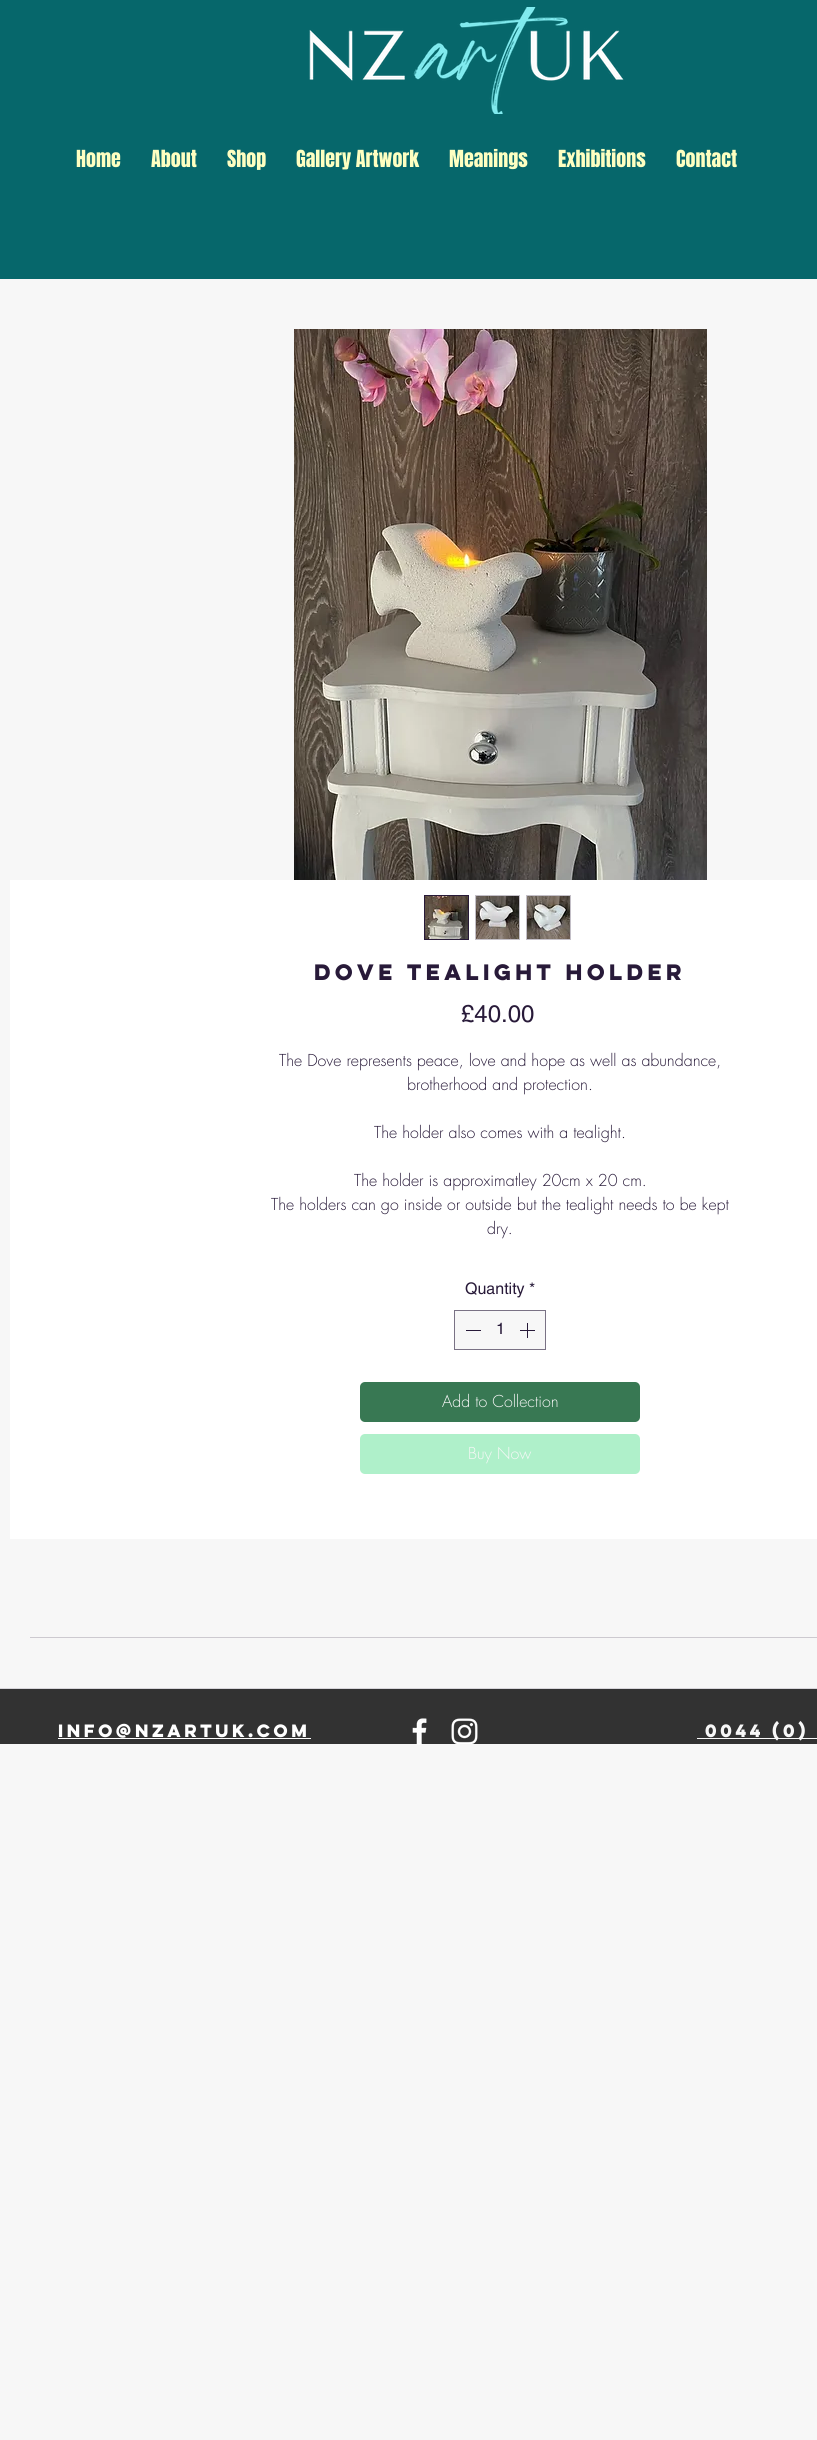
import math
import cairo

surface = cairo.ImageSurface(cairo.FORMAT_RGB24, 817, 2440)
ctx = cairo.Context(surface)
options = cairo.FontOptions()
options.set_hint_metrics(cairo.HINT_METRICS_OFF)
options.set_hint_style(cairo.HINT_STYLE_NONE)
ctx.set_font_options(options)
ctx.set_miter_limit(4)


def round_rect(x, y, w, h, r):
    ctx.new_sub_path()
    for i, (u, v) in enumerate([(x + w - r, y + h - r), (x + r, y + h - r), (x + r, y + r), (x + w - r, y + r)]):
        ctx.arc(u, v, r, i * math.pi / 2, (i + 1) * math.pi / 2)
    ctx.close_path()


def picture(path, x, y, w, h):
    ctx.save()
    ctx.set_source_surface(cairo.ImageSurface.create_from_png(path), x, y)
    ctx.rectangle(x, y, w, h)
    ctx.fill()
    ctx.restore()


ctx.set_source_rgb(0.965, 0.965, 0.965)
ctx.paint()
ctx.set_source_rgb(0.024, 0.404, 0.42)
ctx.rectangle(0, 0, 817, 279)
ctx.fill()
picture("img1.png", 309, 7, 315, 107)
ctx.select_font_face("Anton")
ctx.set_font_size(20)
ctx.set_source_rgb(0.996, 1, 0.757)
ctx.move_to(76, 167)
ctx.show_text("Home")
ctx.move_to(151, 167)
ctx.show_text("About")
ctx.move_to(227, 167)
ctx.show_text("Shop")
ctx.move_to(296, 167)
ctx.show_text("Gallery Artwork")
ctx.move_to(449, 167)
ctx.show_text("Meanings")
ctx.move_to(558, 167)
ctx.show_text("Exhibitions")
ctx.move_to(676, 167)
ctx.show_text("Contact")
ctx.set_source_rgb(1, 1, 1)
ctx.rectangle(10, 880, 807, 659)
ctx.fill()
picture("img2.png", 294, 329, 413, 551)
ctx.rectangle(424.5, 895.5, 44, 44)
ctx.set_source_rgb(0.157, 0.102, 0.224)
ctx.set_line_width(1)
ctx.stroke()
picture("img3.png", 425, 896, 43, 43)
ctx.set_source_rgb(0.765, 0.749, 0.78)
ctx.rectangle(475, 895, 45, 45)
ctx.fill()
picture("img4.png", 476, 896, 43, 43)
ctx.rectangle(526, 895, 45, 45)
ctx.fill()
picture("img5.png", 527, 896, 43, 43)
ctx.select_font_face("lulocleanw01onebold", cairo.FONT_SLANT_NORMAL, cairo.FONT_WEIGHT_BOLD)
ctx.set_source_rgb(0.157, 0.102, 0.224)
ctx.move_to(314, 980)
ctx.show_text("Dove Tealight Holder")
ctx.select_font_face("helvetica")
ctx.set_font_size(24)
ctx.move_to(461, 1022)
ctx.show_text("£40.00")
ctx.select_font_face("futura Light")
ctx.set_font_size(16)
ctx.move_to(279, 1066)
ctx.show_text("The Dove represents peace, love and hope as well as abundance,")
ctx.move_to(407, 1090)
ctx.show_text("brotherhood and protection.")
ctx.move_to(374, 1138)
ctx.show_text("The holder also comes with a tealight.")
ctx.move_to(354, 1186)
ctx.show_text("The holder is approximatley 20cm x 20 cm.")
ctx.move_to(271, 1210)
ctx.show_text("The holders can go inside or outside but the tealight needs to be kept")
ctx.move_to(487, 1234)
ctx.show_text("dry.")
ctx.select_font_face("helvetica")
ctx.move_to(465, 1294)
ctx.show_text("Quantity")
ctx.move_to(529, 1294)
ctx.show_text("*")
ctx.set_source_rgb(0.965, 0.965, 0.965)
ctx.rectangle(454.5, 1310.5, 91, 39)
ctx.fill_preserve()
ctx.set_source_rgb(0.478, 0.447, 0.522)
ctx.stroke()
ctx.set_source_rgb(0.157, 0.102, 0.224)
ctx.rectangle(466, 1330, 15, 1)
ctx.fill()
ctx.move_to(496, 1334)
ctx.show_text("1")
picture("img6.png", 520, 1323, 15, 15)
ctx.set_source_rgb(0.22, 0.471, 0.325)
round_rect(360, 1382, 280, 40, 5)
ctx.fill()
ctx.select_font_face("futura Light")
ctx.set_source_rgb(0.965, 0.965, 0.965)
ctx.move_to(442, 1407)
ctx.show_text("Add to Collection")
ctx.set_source_rgb(0.686, 0.941, 0.792)
round_rect(360, 1434, 280, 40, 5)
ctx.fill()
ctx.set_source_rgb(0.965, 0.965, 0.965)
ctx.move_to(468, 1459)
ctx.show_text("Buy Now")
ctx.set_source_rgb(0.804, 0.792, 0.816)
ctx.rectangle(30, 1637, 787, 1)
ctx.fill()
ctx.set_source_rgb(0.843, 0.835, 0.855)
ctx.rectangle(0, 1688, 817, 1)
ctx.fill()
ctx.set_source_rgb(0.196, 0.196, 0.196)
ctx.rectangle(0, 1689, 817, 55)
ctx.fill()
ctx.select_font_face("lulocleanw01onebold", cairo.FONT_SLANT_NORMAL, cairo.FONT_WEIGHT_BOLD)
ctx.set_source_rgb(1, 1, 1)
ctx.move_to(58, 1737)
ctx.show_text("info@nzartuk.com")
ctx.rectangle(58, 1738, 253, 1)
ctx.fill()
picture("img7.png", 412, 1718, 15, 27)
picture("img8.png", 451, 1718, 27, 26)
ctx.set_source_rgb(0.965, 0.965, 0.965)
ctx.rectangle(697, 1738, 120, 1)
ctx.fill()
ctx.move_to(705, 1737)
ctx.show_text("0044 (0)")
surface.write_to_png("page.png")
